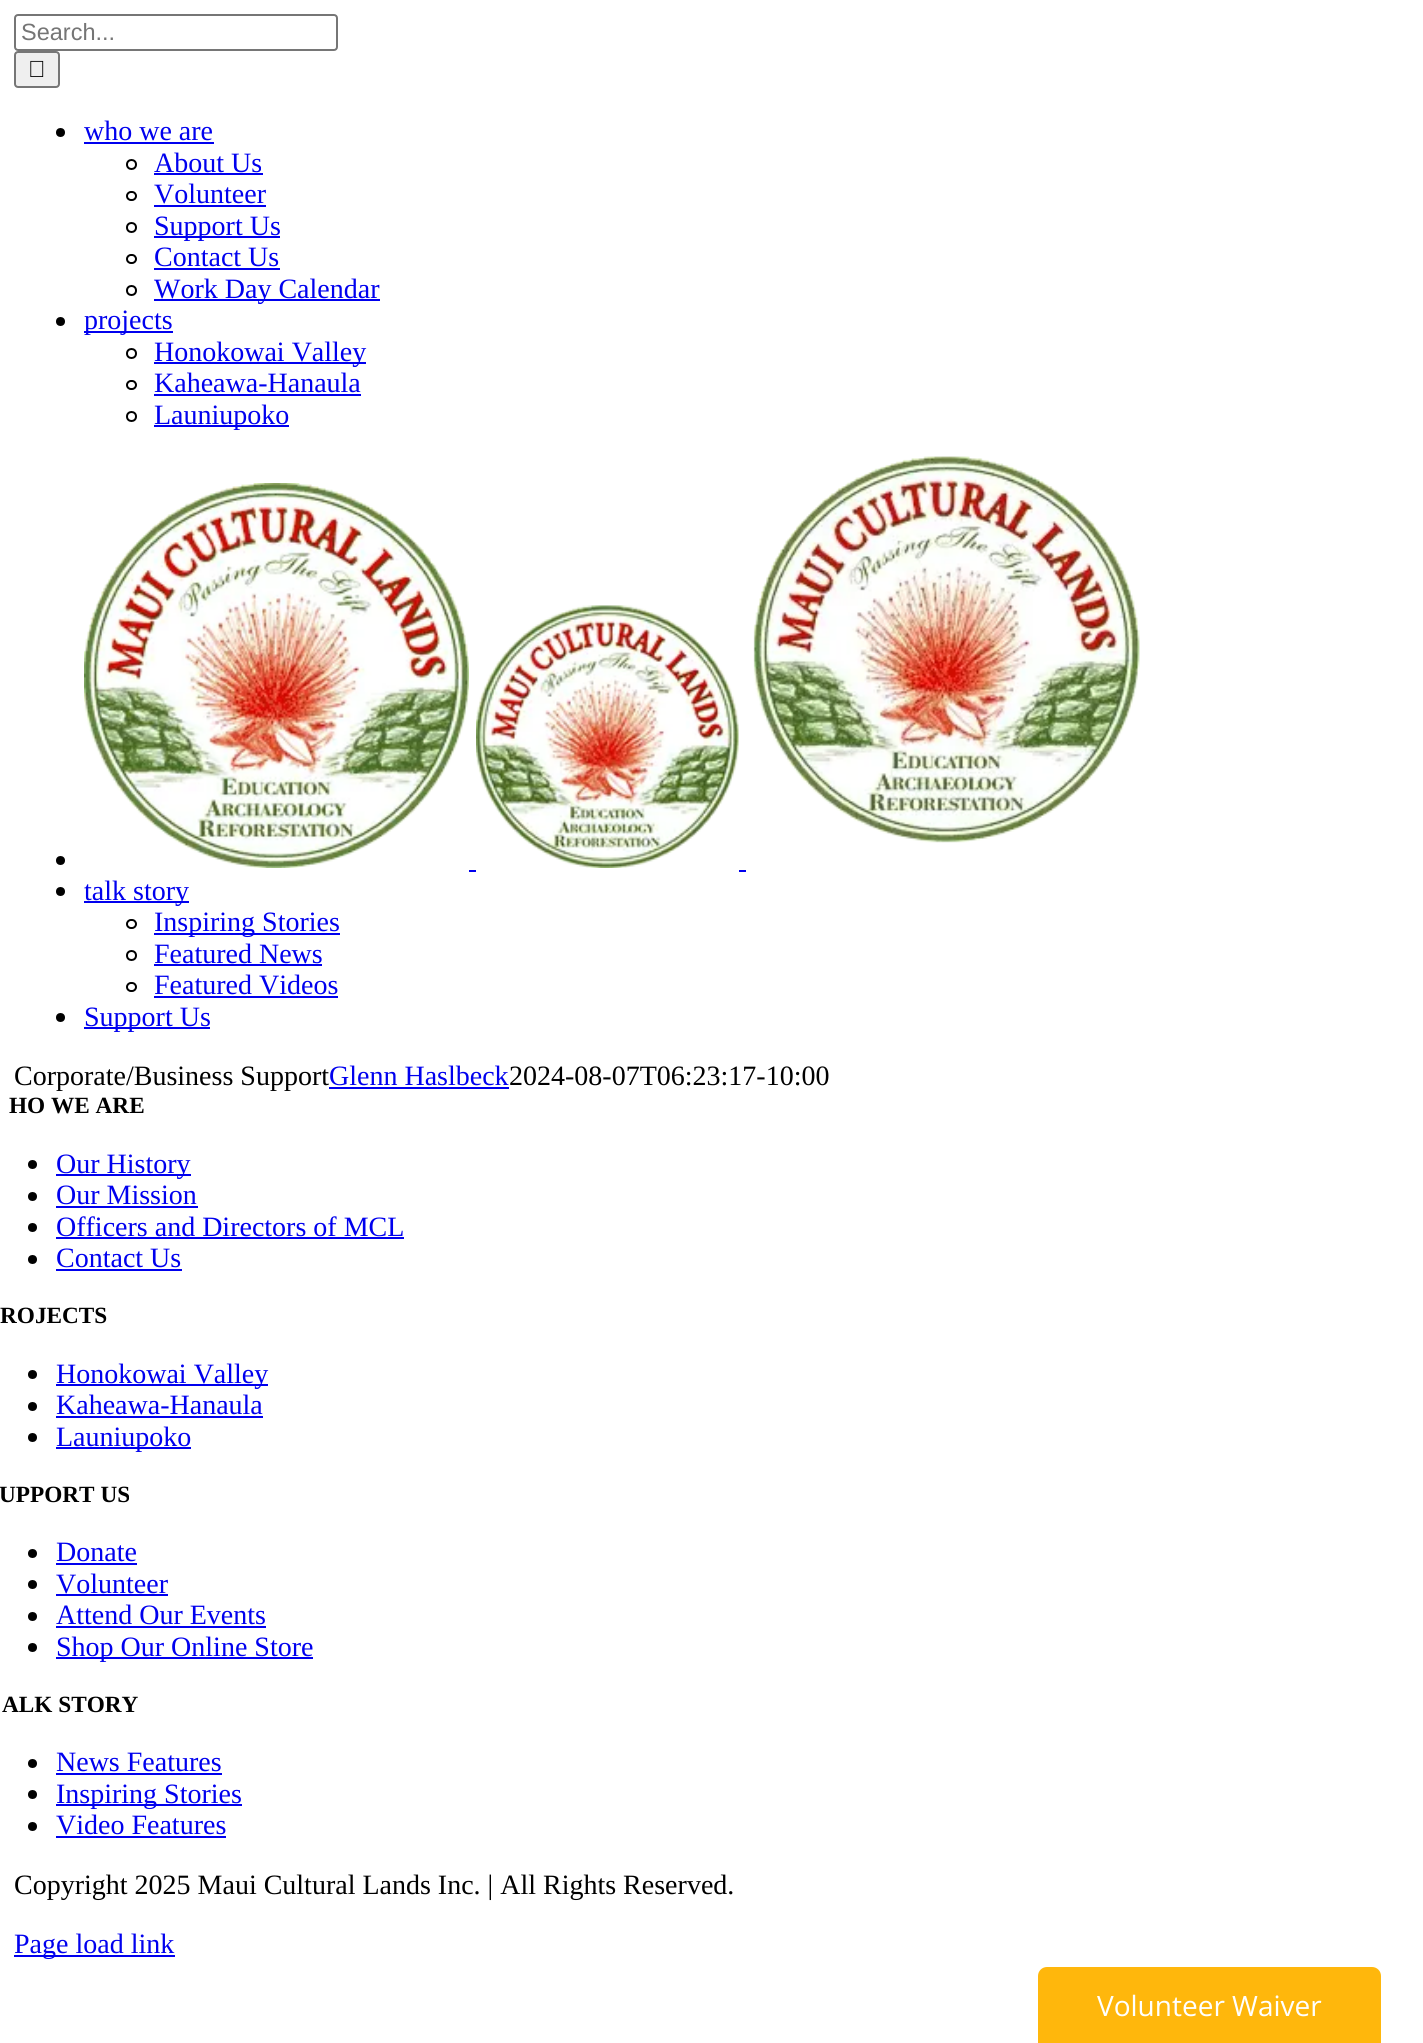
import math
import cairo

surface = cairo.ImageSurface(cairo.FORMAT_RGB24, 1423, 2043)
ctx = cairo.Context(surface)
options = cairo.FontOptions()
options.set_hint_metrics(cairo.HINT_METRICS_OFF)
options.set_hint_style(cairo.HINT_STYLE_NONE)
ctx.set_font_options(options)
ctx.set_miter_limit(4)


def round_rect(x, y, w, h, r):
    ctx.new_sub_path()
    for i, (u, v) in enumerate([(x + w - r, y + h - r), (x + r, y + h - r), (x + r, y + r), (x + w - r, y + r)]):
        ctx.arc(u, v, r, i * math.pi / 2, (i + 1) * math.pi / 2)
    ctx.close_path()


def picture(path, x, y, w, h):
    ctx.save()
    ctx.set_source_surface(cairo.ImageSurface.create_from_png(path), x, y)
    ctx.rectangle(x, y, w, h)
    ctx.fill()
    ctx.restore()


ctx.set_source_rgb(1, 1, 1)
ctx.paint()
round_rect(15, 15, 322, 35, 3)
ctx.set_source_rgb(0.463, 0.463, 0.463)
ctx.stroke()
ctx.select_font_face("Liberation Sans")
ctx.set_font_size(23.5)
ctx.set_source_rgb(0.459, 0.459, 0.459)
ctx.move_to(21, 40)
ctx.show_text("Search...")
ctx.set_source_rgb(0.937, 0.937, 0.937)
round_rect(15, 52, 44, 35, 3)
ctx.fill_preserve()
ctx.set_source_rgb(0.463, 0.463, 0.463)
ctx.stroke()
picture("img1.png", 30, 60, 14, 17)
ctx.set_source_rgb(0, 0, 0)
ctx.arc(60.5, 132.5, 4.5, 0, 2 * math.pi)
ctx.fill()
ctx.select_font_face("Liberation Serif")
ctx.set_font_size(28)
ctx.set_source_rgb(0, 0, 0.933)
ctx.move_to(84, 140)
ctx.show_text("who we are")
ctx.rectangle(84, 142, 130, 2)
ctx.fill()
ctx.arc(131.5, 164.5, 4.5, 0, 2 * math.pi)
ctx.set_source_rgb(0, 0, 0)
ctx.stroke()
ctx.set_source_rgb(0, 0, 0.933)
ctx.move_to(154, 172)
ctx.show_text("About Us")
ctx.rectangle(154, 173, 109, 2)
ctx.fill()
round_rect(127, 192, 9, 8, 4)
ctx.set_source_rgb(0, 0, 0)
ctx.stroke()
ctx.set_source_rgb(0, 0, 0.933)
ctx.move_to(154, 203)
ctx.show_text("Volunteer")
ctx.rectangle(154, 205, 112, 2)
ctx.fill()
ctx.arc(131.5, 227.5, 4.5, 0, 2 * math.pi)
ctx.set_source_rgb(0, 0, 0)
ctx.stroke()
ctx.set_source_rgb(0, 0, 0.933)
ctx.rectangle(154, 236, 126, 2)
ctx.fill()
ctx.move_to(154, 235)
ctx.show_text("Support Us")
round_rect(127, 255, 9, 8, 4)
ctx.set_source_rgb(0, 0, 0)
ctx.stroke()
ctx.set_source_rgb(0, 0, 0.933)
ctx.move_to(154, 266)
ctx.show_text("Contact Us")
ctx.rectangle(154, 268, 126, 2)
ctx.fill()
ctx.arc(131.5, 290.5, 4.5, 0, 2 * math.pi)
ctx.set_source_rgb(0, 0, 0)
ctx.stroke()
ctx.set_source_rgb(0, 0, 0.933)
ctx.rectangle(154, 299, 226, 2)
ctx.fill()
ctx.move_to(154, 298)
ctx.show_text("Work Day Calendar")
ctx.set_source_rgb(0, 0, 0)
ctx.new_path()
ctx.arc(60.5, 321.5, 4.5, 0, 2 * math.pi)
ctx.fill()
ctx.set_source_rgb(0, 0, 0.933)
ctx.rectangle(84, 331, 89, 2)
ctx.fill()
ctx.move_to(84, 329)
ctx.show_text("projects")
ctx.new_path()
ctx.arc(131.5, 353.5, 4.5, 0, 2 * math.pi)
ctx.set_source_rgb(0, 0, 0)
ctx.stroke()
ctx.set_source_rgb(0, 0, 0.933)
ctx.rectangle(154, 362, 212, 2)
ctx.fill()
ctx.move_to(154, 361)
ctx.show_text("Honokowai Valley")
round_rect(127, 381, 9, 8, 4)
ctx.set_source_rgb(0, 0, 0)
ctx.stroke()
ctx.set_source_rgb(0, 0, 0.933)
ctx.move_to(154, 392)
ctx.show_text("Kaheawa-Hanaula")
ctx.rectangle(154, 394, 207, 2)
ctx.fill()
ctx.arc(131.5, 416.5, 4.5, 0, 2 * math.pi)
ctx.set_source_rgb(0, 0, 0)
ctx.stroke()
ctx.set_source_rgb(0, 0, 0.933)
ctx.rectangle(154, 425, 135, 2)
ctx.fill()
ctx.move_to(154, 424)
ctx.show_text("Launiupoko")
ctx.set_source_rgb(0, 0, 0)
ctx.new_path()
ctx.arc(60.5, 860.5, 4.5, 0, 2 * math.pi)
ctx.fill()
picture("img2.png", 84, 483, 385, 385)
picture("img3.png", 476, 605, 263, 263)
picture("img4.png", 753, 456, 387, 387)
ctx.set_source_rgb(0, 0, 0.933)
ctx.rectangle(469, 870, 7, 2)
ctx.fill()
ctx.rectangle(739, 870, 7, 2)
ctx.fill()
ctx.set_source_rgb(0, 0, 0)
ctx.arc(60.5, 891.5, 4.5, 0, 2 * math.pi)
ctx.fill()
ctx.set_source_rgb(0, 0, 0.933)
ctx.rectangle(84, 901, 105, 2)
ctx.fill()
ctx.move_to(84, 900)
ctx.show_text("talk story")
round_rect(127, 920, 9, 8, 4)
ctx.set_source_rgb(0, 0, 0)
ctx.stroke()
ctx.set_source_rgb(0, 0, 0.933)
ctx.rectangle(154, 933, 186, 2)
ctx.fill()
ctx.move_to(154, 931)
ctx.show_text("Inspiring Stories")
ctx.new_path()
ctx.arc(131.5, 955.5, 4.5, 0, 2 * math.pi)
ctx.set_source_rgb(0, 0, 0)
ctx.stroke()
ctx.set_source_rgb(0, 0, 0.933)
ctx.move_to(154, 963)
ctx.show_text("Featured News")
ctx.rectangle(154, 964, 168, 2)
ctx.fill()
round_rect(127, 983, 9, 8, 4)
ctx.set_source_rgb(0, 0, 0)
ctx.stroke()
ctx.set_source_rgb(0, 0, 0.933)
ctx.move_to(154, 994)
ctx.show_text("Featured Videos")
ctx.rectangle(154, 996, 184, 2)
ctx.fill()
ctx.set_source_rgb(0, 0, 0)
ctx.arc(60.5, 1017.5, 4.5, 0, 2 * math.pi)
ctx.fill()
ctx.set_source_rgb(0, 0, 0.933)
ctx.rectangle(84, 1027, 126, 2)
ctx.fill()
ctx.move_to(84, 1026)
ctx.show_text("Support Us")
ctx.set_source_rgb(0, 0, 0)
ctx.move_to(14, 1085)
ctx.show_text("Corporate/Business Support")
ctx.set_source_rgb(0, 0, 0.933)
ctx.move_to(329, 1085)
ctx.show_text("Glenn Haslbeck")
ctx.rectangle(329, 1087, 180, 2)
ctx.fill()
ctx.set_source_rgb(0, 0, 0)
ctx.move_to(509, 1085)
ctx.show_text("2024-08-07T06:23:17-10:00")
ctx.select_font_face("Liberation Serif", cairo.FONT_SLANT_NORMAL, cairo.FONT_WEIGHT_BOLD)
ctx.set_font_size(23.25)
ctx.move_to(9, 1113)
ctx.show_text("HO WE ARE")
ctx.new_path()
ctx.arc(32.5, 1164.5, 4.5, 0, 2 * math.pi)
ctx.fill()
ctx.set_source_rgb(0, 0, 0.933)
ctx.rectangle(56, 1174, 135, 2)
ctx.fill()
ctx.select_font_face("Liberation Serif")
ctx.set_font_size(28)
ctx.move_to(56, 1173)
ctx.show_text("Our History")
ctx.set_source_rgb(0, 0, 0)
ctx.new_path()
ctx.arc(32.5, 1196.5, 4.5, 0, 2 * math.pi)
ctx.fill()
ctx.set_source_rgb(0, 0, 0.933)
ctx.move_to(56, 1204)
ctx.show_text("Our Mission")
ctx.rectangle(56, 1206, 142, 2)
ctx.fill()
ctx.set_source_rgb(0, 0, 0)
ctx.arc(32.5, 1227.5, 4.5, 0, 2 * math.pi)
ctx.fill()
ctx.set_source_rgb(0, 0, 0.933)
ctx.move_to(56, 1236)
ctx.show_text("Officers and Directors of MCL")
ctx.rectangle(56, 1237, 348, 2)
ctx.fill()
ctx.set_source_rgb(0, 0, 0)
ctx.arc(32.5, 1259.5, 4.5, 0, 2 * math.pi)
ctx.fill()
ctx.set_source_rgb(0, 0, 0.933)
ctx.move_to(56, 1267)
ctx.show_text("Contact Us")
ctx.rectangle(56, 1269, 126, 2)
ctx.fill()
ctx.select_font_face("Liberation Serif", cairo.FONT_SLANT_NORMAL, cairo.FONT_WEIGHT_BOLD)
ctx.set_font_size(23.25)
ctx.set_source_rgb(0, 0, 0)
ctx.move_to(0, 1323)
ctx.show_text("ROJECTS")
ctx.new_path()
ctx.arc(32.5, 1374.5, 4.5, 0, 2 * math.pi)
ctx.fill()
ctx.set_source_rgb(0, 0, 0.933)
ctx.rectangle(56, 1384, 212, 2)
ctx.fill()
ctx.select_font_face("Liberation Serif")
ctx.set_font_size(28)
ctx.move_to(56, 1383)
ctx.show_text("Honokowai Valley")
ctx.set_source_rgb(0, 0, 0)
ctx.new_path()
ctx.arc(32.5, 1406.5, 4.5, 0, 2 * math.pi)
ctx.fill()
ctx.set_source_rgb(0, 0, 0.933)
ctx.move_to(56, 1414)
ctx.show_text("Kaheawa-Hanaula")
ctx.rectangle(56, 1416, 207, 2)
ctx.fill()
ctx.set_source_rgb(0, 0, 0)
ctx.arc(32.5, 1437.5, 4.5, 0, 2 * math.pi)
ctx.fill()
ctx.set_source_rgb(0, 0, 0.933)
ctx.rectangle(56, 1447, 135, 2)
ctx.fill()
ctx.move_to(56, 1446)
ctx.show_text("Launiupoko")
ctx.select_font_face("Liberation Serif", cairo.FONT_SLANT_NORMAL, cairo.FONT_WEIGHT_BOLD)
ctx.set_font_size(23.25)
ctx.set_source_rgb(0, 0, 0)
ctx.move_to(-1, 1502)
ctx.show_text("UPPORT US")
ctx.new_path()
ctx.arc(32.5, 1553.5, 4.5, 0, 2 * math.pi)
ctx.fill()
ctx.select_font_face("Liberation Serif")
ctx.set_font_size(28)
ctx.set_source_rgb(0, 0, 0.933)
ctx.move_to(56, 1561)
ctx.show_text("Donate")
ctx.rectangle(56, 1563, 81, 2)
ctx.fill()
ctx.set_source_rgb(0, 0, 0)
ctx.arc(32.5, 1584.5, 4.5, 0, 2 * math.pi)
ctx.fill()
ctx.set_source_rgb(0, 0, 0.933)
ctx.move_to(56, 1593)
ctx.show_text("Volunteer")
ctx.rectangle(56, 1594, 112, 2)
ctx.fill()
ctx.set_source_rgb(0, 0, 0)
ctx.arc(32.5, 1616.5, 4.5, 0, 2 * math.pi)
ctx.fill()
ctx.set_source_rgb(0, 0, 0.933)
ctx.move_to(56, 1624)
ctx.show_text("Attend Our Events")
ctx.rectangle(56, 1626, 210, 2)
ctx.fill()
ctx.set_source_rgb(0, 0, 0)
ctx.arc(32.5, 1647.5, 4.5, 0, 2 * math.pi)
ctx.fill()
ctx.set_source_rgb(0, 0, 0.933)
ctx.rectangle(56, 1657, 257, 2)
ctx.fill()
ctx.move_to(56, 1656)
ctx.show_text("Shop Our Online Store")
ctx.select_font_face("Liberation Serif", cairo.FONT_SLANT_NORMAL, cairo.FONT_WEIGHT_BOLD)
ctx.set_font_size(23.25)
ctx.set_source_rgb(0, 0, 0)
ctx.move_to(2, 1712)
ctx.show_text("ALK STORY")
ctx.new_path()
ctx.arc(32.5, 1763.5, 4.5, 0, 2 * math.pi)
ctx.fill()
ctx.select_font_face("Liberation Serif")
ctx.set_font_size(28)
ctx.set_source_rgb(0, 0, 0.933)
ctx.move_to(56, 1771)
ctx.show_text("News Features")
ctx.rectangle(56, 1773, 166, 2)
ctx.fill()
ctx.set_source_rgb(0, 0, 0)
ctx.arc(32.5, 1794.5, 4.5, 0, 2 * math.pi)
ctx.fill()
ctx.set_source_rgb(0, 0, 0.933)
ctx.rectangle(56, 1804, 186, 2)
ctx.fill()
ctx.move_to(56, 1803)
ctx.show_text("Inspiring Stories")
ctx.set_source_rgb(0, 0, 0)
ctx.new_path()
ctx.arc(32.5, 1826.5, 4.5, 0, 2 * math.pi)
ctx.fill()
ctx.set_source_rgb(0, 0, 0.933)
ctx.move_to(56, 1834)
ctx.show_text("Video Features")
ctx.rectangle(56, 1836, 170, 2)
ctx.fill()
ctx.set_source_rgb(0, 0, 0)
ctx.move_to(14, 1894)
ctx.show_text("Copyright 2025 Maui Cultural Lands Inc. | All Rights Reserved.")
ctx.set_source_rgb(0, 0, 0.933)
ctx.rectangle(14, 1955, 161, 2)
ctx.fill()
ctx.move_to(14, 1953)
ctx.show_text("Page load link")
ctx.set_source_rgb(1, 0.718, 0.047)
ctx.new_path()
ctx.move_to(1047, 1967)
ctx.line_to(1372, 1967)
ctx.curve_to(1377, 1967, 1381, 1971, 1381, 1976)
ctx.line_to(1381, 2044)
ctx.line_to(1038, 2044)
ctx.line_to(1038, 1976)
ctx.curve_to(1038, 1971, 1042, 1967, 1047, 1967)
ctx.close_path()
ctx.fill()
ctx.select_font_face("Open Sans")
ctx.set_source_rgb(1, 1, 1)
ctx.move_to(1097, 2016)
ctx.show_text("Volunteer Waiver")
surface.write_to_png("page.png")
